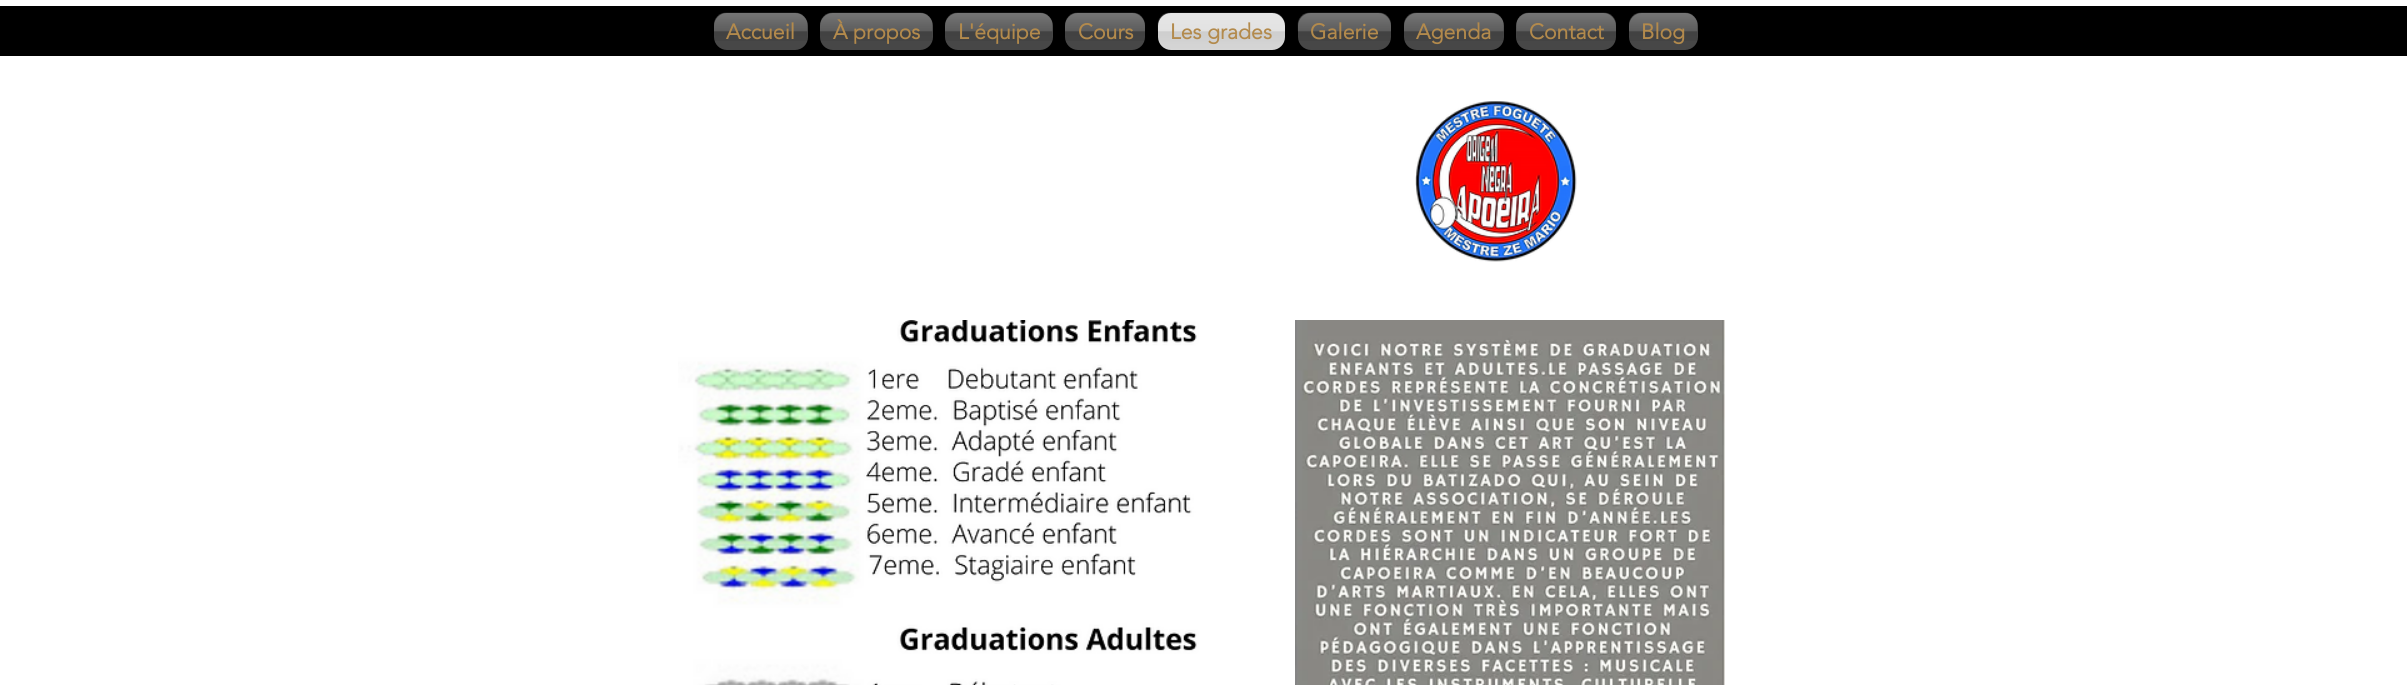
import math
import cairo

surface = cairo.ImageSurface(cairo.FORMAT_RGB24, 2407, 685)
ctx = cairo.Context(surface)
options = cairo.FontOptions()
options.set_hint_metrics(cairo.HINT_METRICS_OFF)
options.set_hint_style(cairo.HINT_STYLE_NONE)
ctx.set_font_options(options)
ctx.set_miter_limit(4)


def round_rect(x, y, w, h, r):
    ctx.new_sub_path()
    for i, (u, v) in enumerate([(x + w - r, y + h - r), (x + r, y + h - r), (x + r, y + r), (x + w - r, y + r)]):
        ctx.arc(u, v, r, i * math.pi / 2, (i + 1) * math.pi / 2)
    ctx.close_path()


def picture(path, x, y, w, h):
    ctx.save()
    ctx.set_source_surface(cairo.ImageSurface.create_from_png(path), x, y)
    ctx.rectangle(x, y, w, h)
    ctx.fill()
    ctx.restore()


ctx.set_source_rgb(1, 1, 1)
ctx.paint()
ctx.set_source_rgb(0, 0, 0)
ctx.rectangle(0, 6, 2407, 50)
ctx.fill()
ctx.set_source_rgb(0.278, 0.278, 0.278)
round_rect(714, 13, 94, 37, 13)
ctx.fill()
picture("img1.png", 714, 12, 94, 29)
ctx.select_font_face("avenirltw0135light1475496", cairo.FONT_SLANT_NORMAL, cairo.FONT_WEIGHT_BOLD)
ctx.set_font_size(21.25)
ctx.set_source_rgb(0.702, 0.541, 0.298)
ctx.move_to(726, 39)
ctx.show_text("Accueil")
ctx.set_source_rgb(0.278, 0.278, 0.278)
round_rect(820, 13, 113, 37, 13)
ctx.fill()
picture("img2.png", 820, 12, 113, 29)
ctx.set_source_rgb(0.702, 0.541, 0.298)
ctx.move_to(833, 39)
ctx.show_text("À propos")
ctx.set_source_rgb(0.278, 0.278, 0.278)
round_rect(945, 13, 108, 37, 13)
ctx.fill()
picture("img3.png", 945, 12, 108, 29)
ctx.set_source_rgb(0.702, 0.541, 0.298)
ctx.move_to(958, 39)
ctx.show_text("L'équipe")
ctx.set_source_rgb(0.278, 0.278, 0.278)
round_rect(1065, 13, 80, 37, 13)
ctx.fill()
picture("img4.png", 1065, 12, 80, 29)
ctx.set_source_rgb(0.702, 0.541, 0.298)
ctx.move_to(1078, 39)
ctx.show_text("Cours")
ctx.set_source_rgb(0.871, 0.871, 0.871)
round_rect(1158, 13, 127, 37, 13)
ctx.fill()
picture("img5.png", 1157, 12, 128, 38)
ctx.set_source_rgb(0.702, 0.541, 0.298)
ctx.move_to(1170, 39)
ctx.show_text("Les grades")
ctx.set_source_rgb(0.278, 0.278, 0.278)
round_rect(1298, 13, 93, 37, 13)
ctx.fill()
picture("img6.png", 1297, 12, 94, 29)
ctx.set_source_rgb(0.702, 0.541, 0.298)
ctx.move_to(1310, 39)
ctx.show_text("Galerie")
ctx.set_source_rgb(0.278, 0.278, 0.278)
round_rect(1404, 13, 100, 37, 13)
ctx.fill()
picture("img7.png", 1404, 12, 100, 29)
ctx.set_source_rgb(0.702, 0.541, 0.298)
ctx.move_to(1416, 39)
ctx.show_text("Agenda")
ctx.set_source_rgb(0.278, 0.278, 0.278)
round_rect(1516, 13, 100, 37, 13)
ctx.fill()
picture("img8.png", 1516, 12, 100, 29)
ctx.set_source_rgb(0.702, 0.541, 0.298)
ctx.move_to(1529, 39)
ctx.show_text("Contact")
ctx.set_source_rgb(0.278, 0.278, 0.278)
round_rect(1629, 13, 69, 37, 13)
ctx.fill()
picture("img9.png", 1629, 12, 69, 29)
ctx.set_source_rgb(0.702, 0.541, 0.298)
ctx.move_to(1641, 39)
ctx.show_text("Blog")
picture("img10.png", 1415, 101, 162, 161)
picture("img11.png", 678, 320, 617, 365)
picture("img12.png", 1295, 320, 430, 365)
surface.write_to_png("page.png")
